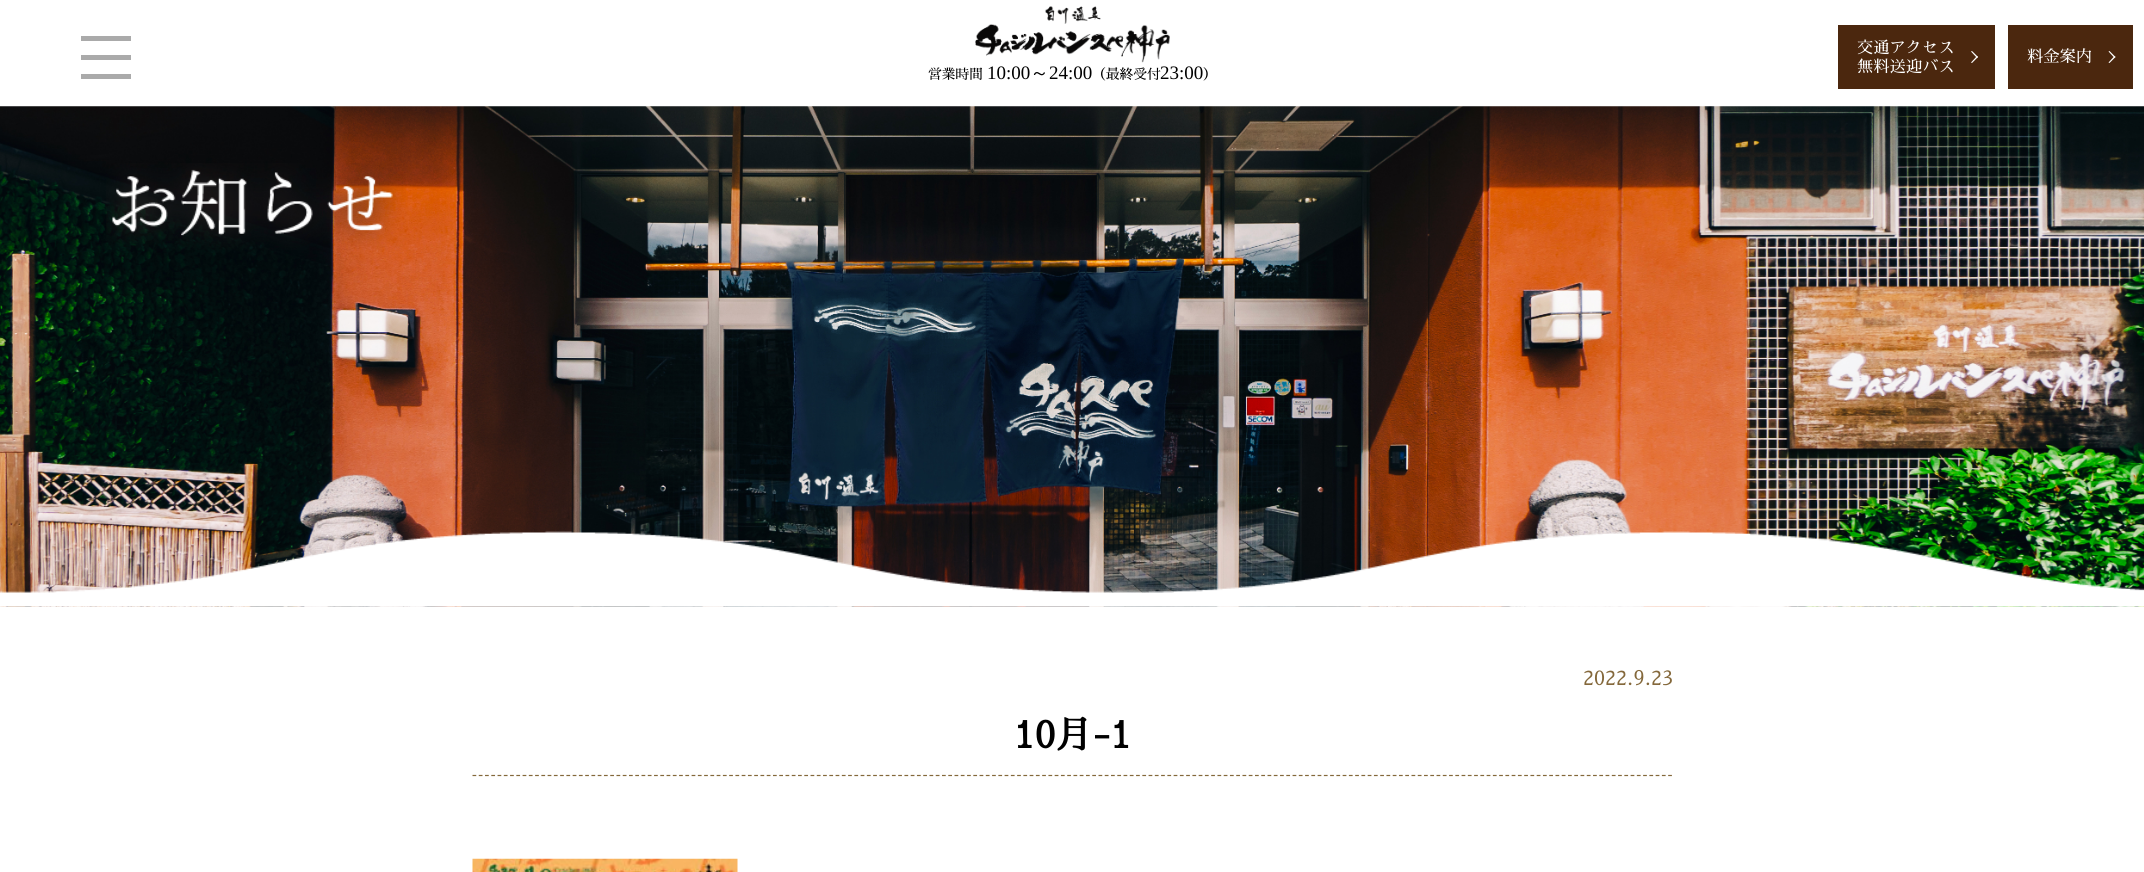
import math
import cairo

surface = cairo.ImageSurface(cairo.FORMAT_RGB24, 2144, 872)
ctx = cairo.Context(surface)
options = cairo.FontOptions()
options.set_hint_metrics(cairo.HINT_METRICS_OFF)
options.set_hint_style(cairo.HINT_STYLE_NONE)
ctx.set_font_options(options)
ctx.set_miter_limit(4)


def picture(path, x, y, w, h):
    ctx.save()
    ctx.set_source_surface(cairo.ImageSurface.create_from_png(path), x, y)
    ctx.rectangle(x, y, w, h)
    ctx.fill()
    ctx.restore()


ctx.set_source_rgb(1, 1, 1)
ctx.paint()
ctx.set_source_rgb(0.667, 0.667, 0.667)
ctx.rectangle(81, 36, 50, 5)
ctx.fill()
ctx.rectangle(81, 55, 50, 5)
ctx.fill()
ctx.rectangle(81, 74, 50, 5)
ctx.fill()
picture("img1.png", 975, 6, 195, 57)
ctx.select_font_face("Sawarabi Mincho")
ctx.set_font_size(13.75)
ctx.set_source_rgb(0, 0, 0)
ctx.move_to(928, 79)
ctx.show_text("営業時間")
ctx.select_font_face("Liberation Serif")
ctx.set_font_size(19)
ctx.move_to(987, 79)
ctx.show_text("10:00")
ctx.select_font_face("WenQuanYi Zen Hei Medium")
ctx.move_to(1030, 79)
ctx.show_text("～")
ctx.select_font_face("Liberation Serif")
ctx.move_to(1049, 79)
ctx.show_text("24:00")
ctx.select_font_face("Sawarabi Mincho")
ctx.set_font_size(13.75)
ctx.move_to(1092, 79)
ctx.show_text("（最終受付")
ctx.select_font_face("Liberation Serif")
ctx.set_font_size(19)
ctx.move_to(1160, 79)
ctx.show_text("23:00")
ctx.select_font_face("Sawarabi Mincho")
ctx.set_font_size(13.75)
ctx.move_to(1203, 79)
ctx.show_text("）")
ctx.set_source_rgb(0.294, 0.153, 0.055)
ctx.rectangle(1838, 25, 157, 64)
ctx.fill()
ctx.set_font_size(16.25)
ctx.set_source_rgb(1, 1, 1)
ctx.move_to(1857, 53)
ctx.show_text("交通アクセス")
ctx.move_to(1857, 72)
ctx.show_text("無料送迎バス")
ctx.new_path()
ctx.move_to(1972, 51)
ctx.line_to(1978, 57)
ctx.line_to(1977, 58)
ctx.line_to(1971, 51.5)
ctx.close_path()
ctx.fill()
ctx.new_path()
ctx.move_to(1977, 56)
ctx.line_to(1978, 57)
ctx.line_to(1972, 63)
ctx.line_to(1971, 62.5)
ctx.close_path()
ctx.fill()
ctx.set_source_rgb(0.294, 0.153, 0.055)
ctx.rectangle(2008, 25, 125, 64)
ctx.fill()
ctx.set_source_rgb(1, 1, 1)
ctx.move_to(2027, 62)
ctx.show_text("料金案内")
ctx.new_path()
ctx.move_to(2109.5, 51)
ctx.line_to(2115.5, 57)
ctx.line_to(2114.5, 58)
ctx.line_to(2108.5, 51.5)
ctx.close_path()
ctx.fill()
ctx.new_path()
ctx.move_to(2114.5, 56)
ctx.line_to(2115.5, 57)
ctx.line_to(2109.5, 63)
ctx.line_to(2108.5, 62.5)
ctx.close_path()
ctx.fill()
picture("img2.png", 0, 106, 2144, 501)
picture("img3.png", 106, 163, 300, 87)
picture("img4.png", 0, 531, 2144, 76)
ctx.set_font_size(20)
ctx.set_source_rgb(0.518, 0.408, 0.231)
ctx.move_to(1583, 685)
ctx.show_text("2022.9.23")
ctx.new_path()
ctx.move_to(472.5, 775.5)
ctx.line_to(1672.5, 775.5)
ctx.set_line_width(1.2)
ctx.set_dash([3.75, 2.51])
ctx.stroke()
ctx.select_font_face("Sawarabi Mincho", cairo.FONT_SLANT_NORMAL, cairo.FONT_WEIGHT_BOLD)
ctx.set_font_size(37.5)
ctx.set_source_rgb(0, 0, 0)
ctx.move_to(1014, 748)
ctx.show_text("10月-1")
picture("img5.png", 472, 858, 266, 14)
surface.write_to_png("page.png")
